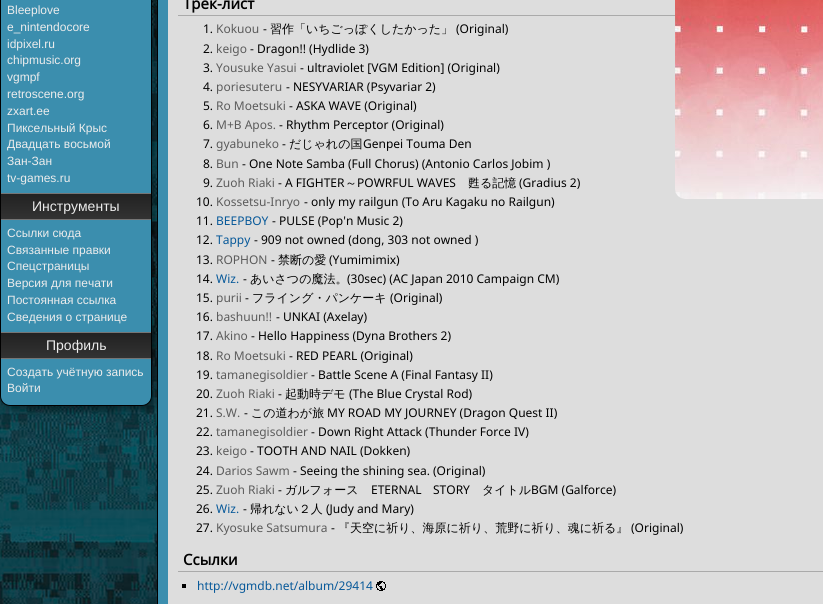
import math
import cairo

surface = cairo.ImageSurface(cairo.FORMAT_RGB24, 823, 604)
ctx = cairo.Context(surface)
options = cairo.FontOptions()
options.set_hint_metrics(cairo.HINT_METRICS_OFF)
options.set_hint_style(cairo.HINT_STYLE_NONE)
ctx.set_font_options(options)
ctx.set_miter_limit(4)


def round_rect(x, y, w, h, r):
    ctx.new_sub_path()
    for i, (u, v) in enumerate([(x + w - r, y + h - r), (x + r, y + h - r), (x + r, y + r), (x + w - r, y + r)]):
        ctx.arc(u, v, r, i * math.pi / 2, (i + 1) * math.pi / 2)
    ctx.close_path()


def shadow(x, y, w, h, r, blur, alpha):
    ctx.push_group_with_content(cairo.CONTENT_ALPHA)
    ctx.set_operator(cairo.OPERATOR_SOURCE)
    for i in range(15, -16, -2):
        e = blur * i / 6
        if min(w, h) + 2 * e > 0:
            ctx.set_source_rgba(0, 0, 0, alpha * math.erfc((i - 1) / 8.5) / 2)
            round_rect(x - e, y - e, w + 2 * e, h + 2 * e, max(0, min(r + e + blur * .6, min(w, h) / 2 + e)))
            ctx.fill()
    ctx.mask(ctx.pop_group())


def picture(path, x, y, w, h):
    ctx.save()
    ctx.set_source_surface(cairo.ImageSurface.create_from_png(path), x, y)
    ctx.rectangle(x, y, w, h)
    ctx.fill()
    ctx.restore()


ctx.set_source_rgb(1, 1, 1)
ctx.paint()
picture("img1.png", 0, 0, 157, 604)
ctx.set_source_rgb(0, 0, 0)
shadow(5, -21, 152, 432, 10, 3.5, 0.4)
ctx.set_source_rgb(0.231, 0.557, 0.682)
round_rect(0.5, -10.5, 151, 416, 9.5)
ctx.fill_preserve()
ctx.set_source_rgb(0, 0, 0)
ctx.set_line_width(1)
ctx.stroke()
ctx.select_font_face("Liberation Sans")
ctx.set_font_size(12)
ctx.set_source_rgb(0.925, 0.925, 0.925)
ctx.move_to(7, 14)
ctx.show_text("Bleeplove")
ctx.move_to(7, 31)
ctx.show_text("e_nintendocore")
ctx.move_to(7, 48)
ctx.show_text("idpixel.ru")
ctx.move_to(7, 64)
ctx.show_text("chipmusic.org")
ctx.move_to(7, 81)
ctx.show_text("vgmpf")
ctx.move_to(7, 98)
ctx.show_text("retroscene.org")
ctx.move_to(7, 115)
ctx.show_text("zxart.ee")
ctx.move_to(7, 132)
ctx.show_text("Пиксельный Крыс")
ctx.move_to(7, 148)
ctx.show_text("Двадцать восьмой")
ctx.move_to(7, 165)
ctx.show_text("Зан-Зан")
ctx.move_to(7, 182)
ctx.show_text("tv-games.ru")
picture("img2.png", 1, 193, 150, 27)
ctx.set_font_size(14)
ctx.move_to(32, 211)
ctx.show_text("Инструменты")
ctx.set_font_size(12)
ctx.move_to(7, 237)
ctx.show_text("Ссылки сюда")
ctx.move_to(7, 254)
ctx.show_text("Связанные правки")
ctx.move_to(7, 270)
ctx.show_text("Спецстраницы")
ctx.move_to(7, 287)
ctx.show_text("Версия для печати")
ctx.move_to(7, 304)
ctx.show_text("Постоянная ссылка")
ctx.move_to(7, 321)
ctx.show_text("Сведения о странице")
picture("img2.png", 1, 332, 150, 27)
ctx.set_font_size(14)
ctx.move_to(46, 350)
ctx.show_text("Профиль")
ctx.set_font_size(12)
ctx.move_to(7, 376)
ctx.show_text("Создать учётную запись")
ctx.move_to(7, 392)
ctx.show_text("Войти")
ctx.set_source_rgb(0, 0, 0)
shadow(162, -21, 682, 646, 10, 3.5, 0.4)
ctx.set_source_rgb(0.231, 0.557, 0.682)
ctx.rectangle(158, 0, 10, 604)
ctx.fill()
ctx.rectangle(157.5, -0.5, 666, 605)
ctx.set_source_rgb(0, 0, 0)
ctx.stroke()
ctx.set_source_rgb(0.867, 0.867, 0.867)
ctx.rectangle(168, 0, 655, 604)
ctx.fill()
ctx.set_source_rgb(0.667, 0.667, 0.667)
ctx.rectangle(178, 15, 497, 1)
ctx.fill()
ctx.select_font_face("Noto Sans", cairo.FONT_SLANT_NORMAL, cairo.FONT_WEIGHT_BOLD)
ctx.set_font_size(15)
ctx.set_source_rgb(0, 0, 0)
ctx.move_to(183, 9)
ctx.show_text("Трек-лист")
picture("img3.png", 675, 0, 148, 199)
ctx.select_font_face("Noto Sans")
ctx.set_font_size(12)
ctx.move_to(203, 33)
ctx.show_text("1.")
ctx.set_source_rgb(0.357, 0.357, 0.357)
ctx.move_to(216, 33)
ctx.show_text("Kokuou")
ctx.set_source_rgb(0, 0, 0)
ctx.move_to(263, 33)
ctx.show_text("-")
ctx.select_font_face("WenQuanYi Zen Hei Medium")
ctx.move_to(270, 33)
ctx.show_text("習作「いちごっぽくしたかった」")
ctx.select_font_face("Noto Sans")
ctx.move_to(456, 33)
ctx.show_text("(Original)")
ctx.move_to(203, 53)
ctx.show_text("2.")
ctx.set_source_rgb(0.357, 0.357, 0.357)
ctx.move_to(216, 53)
ctx.show_text("keigo")
ctx.set_source_rgb(0, 0, 0)
ctx.move_to(250, 53)
ctx.show_text("- Dragon!! (Hydlide 3)")
ctx.move_to(203, 72)
ctx.show_text("3.")
ctx.set_source_rgb(0.357, 0.357, 0.357)
ctx.move_to(216, 72)
ctx.show_text("Yousuke Yasui")
ctx.set_source_rgb(0, 0, 0)
ctx.move_to(300, 72)
ctx.show_text("- ultraviolet [VGM Edition] (Original)")
ctx.move_to(203, 91)
ctx.show_text("4.")
ctx.set_source_rgb(0.357, 0.357, 0.357)
ctx.move_to(216, 91)
ctx.show_text("poriesuteru")
ctx.set_source_rgb(0, 0, 0)
ctx.move_to(286, 91)
ctx.show_text("- NESYVARIAR (Psyvariar 2)")
ctx.move_to(203, 110)
ctx.show_text("5.")
ctx.set_source_rgb(0.357, 0.357, 0.357)
ctx.move_to(216, 110)
ctx.show_text("Ro Moetsuki")
ctx.set_source_rgb(0, 0, 0)
ctx.move_to(289, 110)
ctx.show_text("- ASKA WAVE (Original)")
ctx.move_to(203, 129)
ctx.show_text("6.")
ctx.set_source_rgb(0.357, 0.357, 0.357)
ctx.move_to(216, 129)
ctx.show_text("M+B Apos.")
ctx.set_source_rgb(0, 0, 0)
ctx.move_to(279, 129)
ctx.show_text("- Rhythm Perceptor (Original)")
ctx.move_to(203, 148)
ctx.show_text("7.")
ctx.set_source_rgb(0.357, 0.357, 0.357)
ctx.move_to(216, 148)
ctx.show_text("gyabuneko")
ctx.set_source_rgb(0, 0, 0)
ctx.move_to(282, 148)
ctx.show_text("-")
ctx.select_font_face("WenQuanYi Zen Hei Medium")
ctx.move_to(289, 148)
ctx.show_text("だじゃれの国")
ctx.select_font_face("Noto Sans")
ctx.move_to(363, 148)
ctx.show_text("Genpei Touma Den")
ctx.move_to(203, 168)
ctx.show_text("8.")
ctx.set_source_rgb(0.357, 0.357, 0.357)
ctx.move_to(216, 168)
ctx.show_text("Bun")
ctx.set_source_rgb(0, 0, 0)
ctx.move_to(242, 168)
ctx.show_text("- One Note Samba (Full Chorus) (Antonio Carlos Jobim )")
ctx.move_to(203, 187)
ctx.show_text("9.")
ctx.set_source_rgb(0.357, 0.357, 0.357)
ctx.move_to(216, 187)
ctx.show_text("Zuoh Riaki")
ctx.set_source_rgb(0, 0, 0)
ctx.move_to(278, 187)
ctx.show_text("- A FIGHTER")
ctx.select_font_face("WenQuanYi Zen Hei Medium")
ctx.move_to(345, 187)
ctx.show_text("～")
ctx.select_font_face("Noto Sans")
ctx.move_to(357, 187)
ctx.show_text("POWRFUL WAVES")
ctx.select_font_face("WenQuanYi Zen Hei Medium")
ctx.move_to(468, 187)
ctx.show_text("甦る記憶")
ctx.select_font_face("Noto Sans")
ctx.move_to(519, 187)
ctx.show_text("(Gradius 2)")
ctx.move_to(196, 206)
ctx.show_text("10.")
ctx.set_source_rgb(0.357, 0.357, 0.357)
ctx.move_to(216, 206)
ctx.show_text("Kossetsu-Inryo")
ctx.set_source_rgb(0, 0, 0)
ctx.move_to(304, 206)
ctx.show_text("- only my railgun (To Aru Kagaku no Railgun)")
ctx.move_to(196, 225)
ctx.show_text("11.")
ctx.set_source_rgb(0.027, 0.345, 0.6)
ctx.move_to(216, 225)
ctx.show_text("BEEPBOY")
ctx.set_source_rgb(0, 0, 0)
ctx.move_to(272, 225)
ctx.show_text("- PULSE (Pop'n Music 2)")
ctx.move_to(196, 244)
ctx.show_text("12.")
ctx.set_source_rgb(0.027, 0.345, 0.6)
ctx.move_to(216, 244)
ctx.show_text("Tappy")
ctx.set_source_rgb(0, 0, 0)
ctx.move_to(254, 244)
ctx.show_text("- 909 not owned (dong, 303 not owned )")
ctx.move_to(196, 264)
ctx.show_text("13.")
ctx.set_source_rgb(0.357, 0.357, 0.357)
ctx.move_to(216, 264)
ctx.show_text("ROPHON")
ctx.set_source_rgb(0, 0, 0)
ctx.move_to(271, 264)
ctx.show_text("-")
ctx.select_font_face("WenQuanYi Zen Hei Medium")
ctx.move_to(278, 264)
ctx.show_text("禁断の愛")
ctx.select_font_face("Noto Sans")
ctx.move_to(329, 264)
ctx.show_text("(Yumimimix)")
ctx.move_to(196, 283)
ctx.show_text("14.")
ctx.set_source_rgb(0.027, 0.345, 0.6)
ctx.move_to(216, 283)
ctx.show_text("Wiz.")
ctx.set_source_rgb(0, 0, 0)
ctx.move_to(243, 283)
ctx.show_text("-")
ctx.select_font_face("WenQuanYi Zen Hei Medium")
ctx.move_to(250, 283)
ctx.show_text("あいさつの魔法。")
ctx.select_font_face("Noto Sans")
ctx.move_to(347, 283)
ctx.show_text("(30sec) (AC Japan 2010 Campaign CM)")
ctx.move_to(196, 302)
ctx.show_text("15.")
ctx.set_source_rgb(0.357, 0.357, 0.357)
ctx.move_to(216, 302)
ctx.show_text("purii")
ctx.set_source_rgb(0, 0, 0)
ctx.move_to(245, 302)
ctx.show_text("-")
ctx.select_font_face("WenQuanYi Zen Hei Medium")
ctx.move_to(252, 302)
ctx.show_text("フライング・パンケーキ")
ctx.select_font_face("Noto Sans")
ctx.move_to(390, 302)
ctx.show_text("(Original)")
ctx.move_to(196, 321)
ctx.show_text("16.")
ctx.set_source_rgb(0.357, 0.357, 0.357)
ctx.move_to(216, 321)
ctx.show_text("bashuun!!")
ctx.set_source_rgb(0, 0, 0)
ctx.move_to(276, 321)
ctx.show_text("- UNKAI (Axelay)")
ctx.move_to(196, 340)
ctx.show_text("17.")
ctx.set_source_rgb(0.357, 0.357, 0.357)
ctx.move_to(216, 340)
ctx.show_text("Akino")
ctx.set_source_rgb(0, 0, 0)
ctx.move_to(251, 340)
ctx.show_text("- Hello Happiness (Dyna Brothers 2)")
ctx.move_to(196, 360)
ctx.show_text("18.")
ctx.set_source_rgb(0.357, 0.357, 0.357)
ctx.move_to(216, 360)
ctx.show_text("Ro Moetsuki")
ctx.set_source_rgb(0, 0, 0)
ctx.move_to(289, 360)
ctx.show_text("- RED PEARL (Original)")
ctx.move_to(196, 379)
ctx.show_text("19.")
ctx.set_source_rgb(0.357, 0.357, 0.357)
ctx.move_to(216, 379)
ctx.show_text("tamanegisoldier")
ctx.set_source_rgb(0, 0, 0)
ctx.move_to(311, 379)
ctx.show_text("- Battle Scene A (Final Fantasy II)")
ctx.move_to(196, 398)
ctx.show_text("20.")
ctx.set_source_rgb(0.357, 0.357, 0.357)
ctx.move_to(216, 398)
ctx.show_text("Zuoh Riaki")
ctx.set_source_rgb(0, 0, 0)
ctx.move_to(278, 398)
ctx.show_text("-")
ctx.select_font_face("WenQuanYi Zen Hei Medium")
ctx.move_to(285, 398)
ctx.show_text("起動時デモ")
ctx.select_font_face("Noto Sans")
ctx.move_to(349, 398)
ctx.show_text("(The Blue Crystal Rod)")
ctx.move_to(196, 417)
ctx.show_text("21.")
ctx.set_source_rgb(0.357, 0.357, 0.357)
ctx.move_to(216, 417)
ctx.show_text("S.W.")
ctx.set_source_rgb(0, 0, 0)
ctx.move_to(244, 417)
ctx.show_text("-")
ctx.select_font_face("WenQuanYi Zen Hei Medium")
ctx.move_to(251, 417)
ctx.show_text("この道わが旅")
ctx.select_font_face("Noto Sans")
ctx.move_to(327, 417)
ctx.show_text("MY ROAD MY JOURNEY (Dragon Quest II)")
ctx.move_to(196, 436)
ctx.show_text("22.")
ctx.set_source_rgb(0.357, 0.357, 0.357)
ctx.move_to(216, 436)
ctx.show_text("tamanegisoldier")
ctx.set_source_rgb(0, 0, 0)
ctx.move_to(311, 436)
ctx.show_text("- Down Right Attack (Thunder Force IV)")
ctx.move_to(196, 455)
ctx.show_text("23.")
ctx.set_source_rgb(0.357, 0.357, 0.357)
ctx.move_to(216, 455)
ctx.show_text("keigo")
ctx.set_source_rgb(0, 0, 0)
ctx.move_to(250, 455)
ctx.show_text("- TOOTH AND NAIL (Dokken)")
ctx.move_to(196, 475)
ctx.show_text("24.")
ctx.set_source_rgb(0.357, 0.357, 0.357)
ctx.move_to(216, 475)
ctx.show_text("Darios Sawm")
ctx.set_source_rgb(0, 0, 0)
ctx.move_to(293, 475)
ctx.show_text("- Seeing the shining sea. (Original)")
ctx.move_to(196, 494)
ctx.show_text("25.")
ctx.set_source_rgb(0.357, 0.357, 0.357)
ctx.move_to(216, 494)
ctx.show_text("Zuoh Riaki")
ctx.set_source_rgb(0, 0, 0)
ctx.move_to(278, 494)
ctx.show_text("-")
ctx.select_font_face("WenQuanYi Zen Hei Medium")
ctx.move_to(285, 494)
ctx.show_text("ガルフォース")
ctx.select_font_face("Noto Sans")
ctx.move_to(371, 494)
ctx.show_text("ETERNAL")
ctx.move_to(433, 494)
ctx.show_text("STORY")
ctx.select_font_face("WenQuanYi Zen Hei Medium")
ctx.move_to(482, 494)
ctx.show_text("タイトル")
ctx.select_font_face("Noto Sans")
ctx.move_to(531, 494)
ctx.show_text("BGM (Galforce)")
ctx.move_to(196, 513)
ctx.show_text("26.")
ctx.set_source_rgb(0.027, 0.345, 0.6)
ctx.move_to(216, 513)
ctx.show_text("Wiz.")
ctx.set_source_rgb(0, 0, 0)
ctx.move_to(243, 513)
ctx.show_text("-")
ctx.select_font_face("WenQuanYi Zen Hei Medium")
ctx.move_to(250, 513)
ctx.show_text("帰れない２人")
ctx.select_font_face("Noto Sans")
ctx.move_to(326, 513)
ctx.show_text("(Judy and Mary)")
ctx.move_to(196, 532)
ctx.show_text("27.")
ctx.set_source_rgb(0.357, 0.357, 0.357)
ctx.move_to(216, 532)
ctx.show_text("Kyosuke Satsumura")
ctx.set_source_rgb(0, 0, 0)
ctx.move_to(331, 532)
ctx.show_text("-")
ctx.select_font_face("WenQuanYi Zen Hei Medium")
ctx.move_to(338, 532)
ctx.show_text("『天空に祈り、海原に祈り、荒野に祈り、魂に祈る』")
ctx.select_font_face("Noto Sans")
ctx.move_to(631, 532)
ctx.show_text("(Original)")
ctx.set_source_rgb(0.667, 0.667, 0.667)
ctx.rectangle(178, 571, 645, 1)
ctx.fill()
ctx.select_font_face("Noto Sans", cairo.FONT_SLANT_NORMAL, cairo.FONT_WEIGHT_BOLD)
ctx.set_font_size(15)
ctx.set_source_rgb(0, 0, 0)
ctx.move_to(183, 565)
ctx.show_text("Ссылки")
ctx.rectangle(182, 584, 4, 4)
ctx.fill()
ctx.select_font_face("Noto Sans")
ctx.set_font_size(12)
ctx.set_source_rgb(0.027, 0.345, 0.6)
ctx.move_to(197, 590)
ctx.show_text("http://vgmdb.net/album/29414")
picture("img4.png", 376, 581, 10, 10)
surface.write_to_png("page.png")
